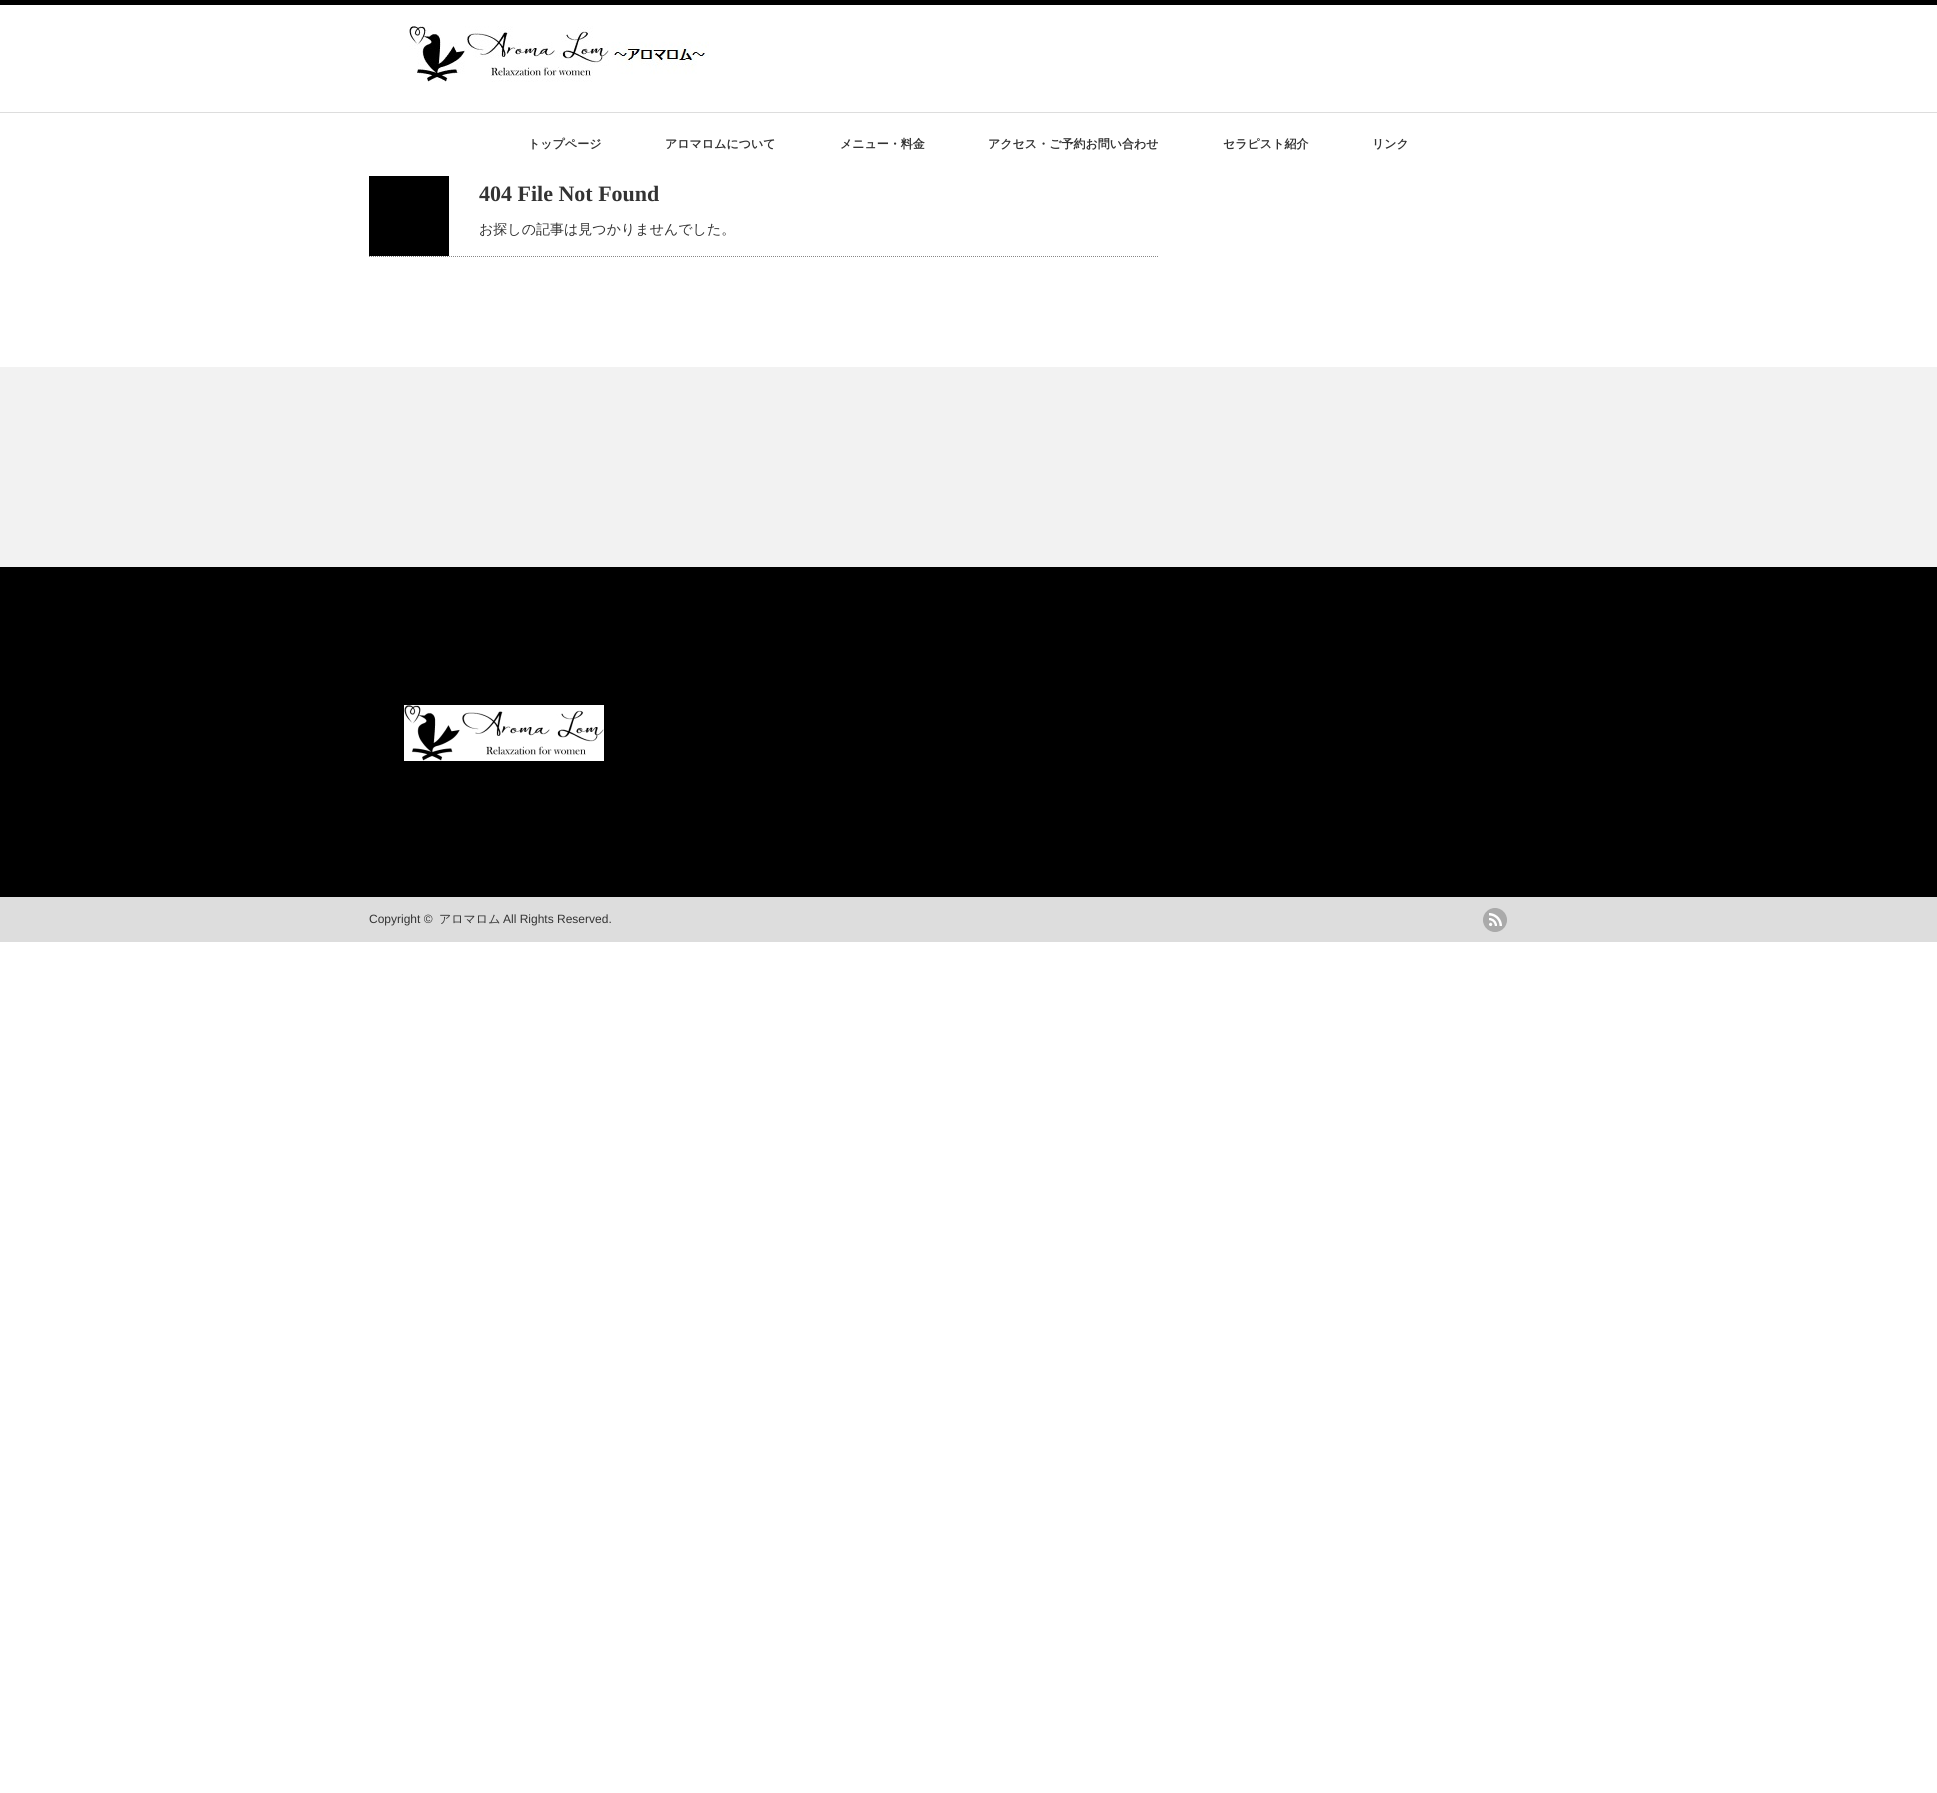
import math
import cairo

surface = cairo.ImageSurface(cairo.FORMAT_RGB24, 1937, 1793)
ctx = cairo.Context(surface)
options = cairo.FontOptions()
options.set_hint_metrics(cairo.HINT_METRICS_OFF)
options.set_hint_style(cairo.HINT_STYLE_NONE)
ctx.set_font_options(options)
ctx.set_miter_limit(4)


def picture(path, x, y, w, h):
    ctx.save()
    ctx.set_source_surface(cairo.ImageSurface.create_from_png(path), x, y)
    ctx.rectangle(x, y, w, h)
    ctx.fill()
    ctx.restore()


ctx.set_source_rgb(1, 1, 1)
ctx.paint()
ctx.set_source_rgb(0, 0, 0)
ctx.rectangle(0, 0, 1937, 5)
ctx.fill()
picture("img1.png", 409, 26, 300, 56)
ctx.set_source_rgb(0.867, 0.867, 0.867)
ctx.rectangle(0, 112, 1937, 1)
ctx.fill()
ctx.select_font_face("WenQuanYi Zen Hei", cairo.FONT_SLANT_NORMAL, cairo.FONT_WEIGHT_BOLD)
ctx.set_font_size(12)
ctx.set_source_rgb(0.2, 0.2, 0.2)
ctx.move_to(528, 148)
ctx.show_text("トップページ")
ctx.move_to(665, 148)
ctx.show_text("アロマロムについて")
ctx.move_to(840, 148)
ctx.show_text("メニュー・料金")
ctx.move_to(988, 148)
ctx.show_text("アクセス・ご予約お問い合わせ")
ctx.move_to(1223, 148)
ctx.show_text("セラピスト紹介")
ctx.move_to(1372, 148)
ctx.show_text("リンク")
ctx.new_path()
ctx.move_to(369, 256.5)
ctx.line_to(1159, 256.5)
ctx.set_source_rgb(0.529, 0.529, 0.529)
ctx.set_line_width(1)
ctx.set_dash([1, 1])
ctx.stroke()
ctx.set_source_rgb(0, 0, 0)
ctx.rectangle(369, 176, 80, 80)
ctx.fill()
ctx.select_font_face("Liberation Serif", cairo.FONT_SLANT_NORMAL, cairo.FONT_WEIGHT_BOLD)
ctx.set_font_size(22)
ctx.set_source_rgb(0.2, 0.2, 0.2)
ctx.move_to(479, 201)
ctx.show_text("404 File Not Found")
ctx.select_font_face("WenQuanYi Zen Hei Medium")
ctx.set_font_size(14)
ctx.move_to(479, 234)
ctx.show_text("お探しの記事は見つかりませんでした。")
ctx.set_source_rgb(0.949, 0.949, 0.949)
ctx.rectangle(0, 367, 1937, 200)
ctx.fill()
ctx.set_source_rgb(0, 0, 0)
ctx.rectangle(0, 567, 1937, 330)
ctx.fill()
picture("img2.png", 404, 705, 200, 56)
ctx.set_source_rgb(0.867, 0.867, 0.867)
ctx.rectangle(0, 897, 1937, 45)
ctx.fill()
ctx.select_font_face("Liberation Sans")
ctx.set_font_size(12)
ctx.set_source_rgb(0.2, 0.2, 0.2)
ctx.move_to(369, 923)
ctx.show_text("Copyright ©")
ctx.select_font_face("WenQuanYi Zen Hei Medium")
ctx.move_to(439, 923)
ctx.show_text("アロマロム")
ctx.select_font_face("Liberation Sans")
ctx.move_to(503, 923)
ctx.show_text("All Rights Reserved.")
picture("img3.png", 1483, 908, 24, 24)
surface.write_to_png("page.png")
